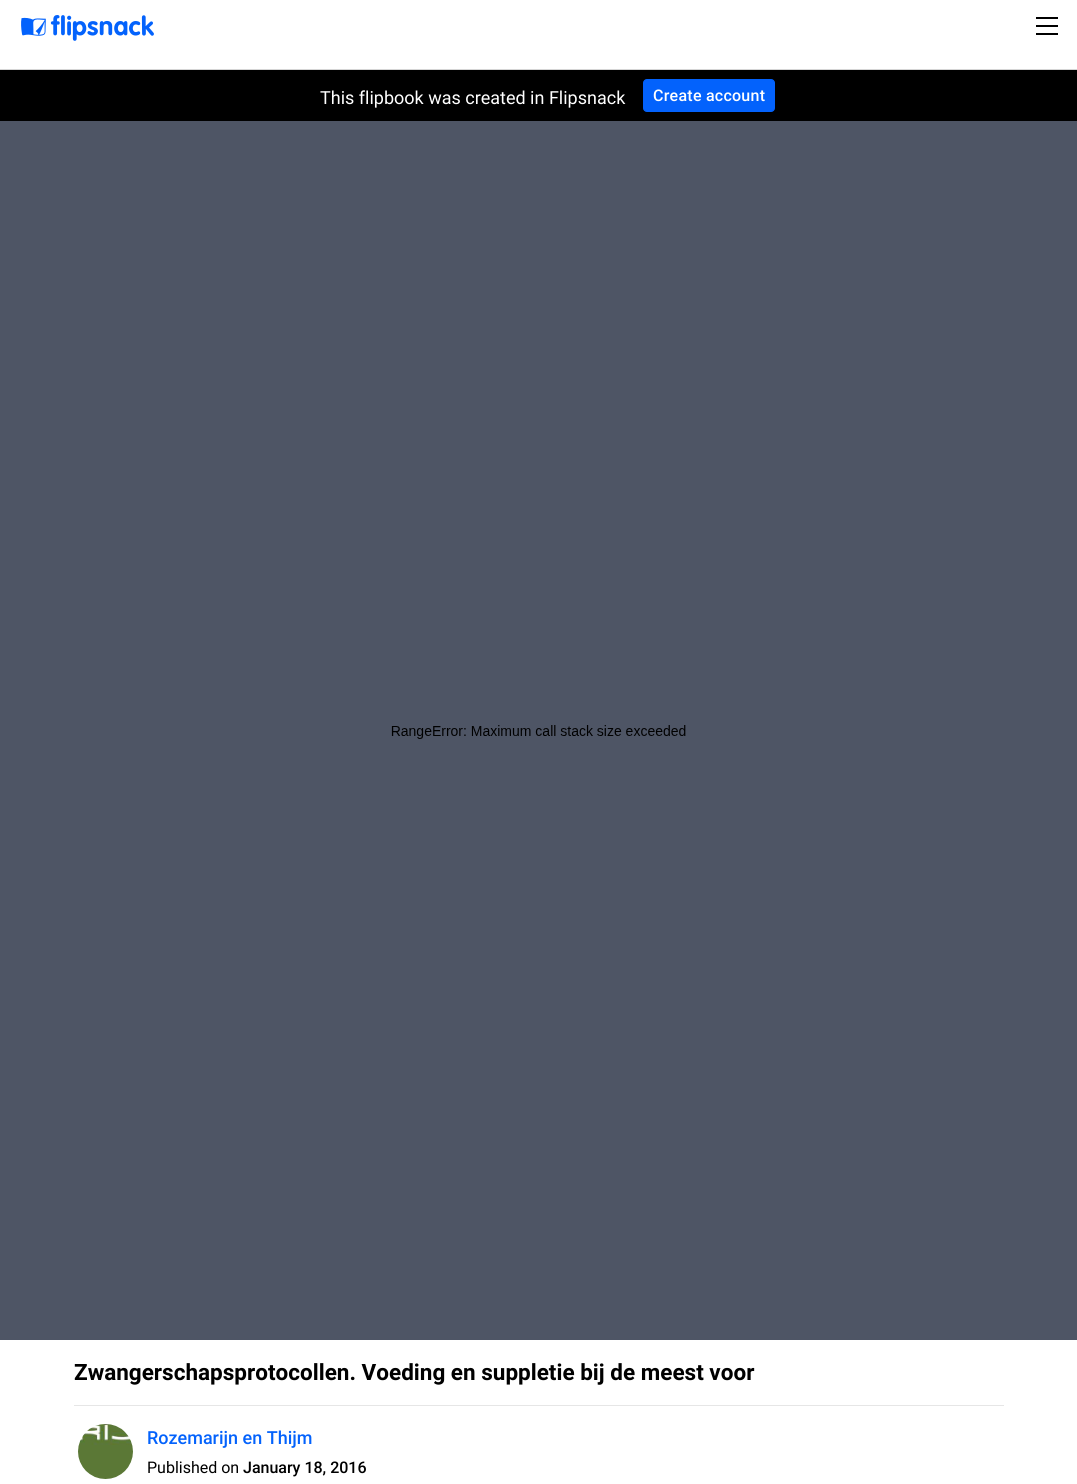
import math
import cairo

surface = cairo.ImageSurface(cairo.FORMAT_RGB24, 1077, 1484)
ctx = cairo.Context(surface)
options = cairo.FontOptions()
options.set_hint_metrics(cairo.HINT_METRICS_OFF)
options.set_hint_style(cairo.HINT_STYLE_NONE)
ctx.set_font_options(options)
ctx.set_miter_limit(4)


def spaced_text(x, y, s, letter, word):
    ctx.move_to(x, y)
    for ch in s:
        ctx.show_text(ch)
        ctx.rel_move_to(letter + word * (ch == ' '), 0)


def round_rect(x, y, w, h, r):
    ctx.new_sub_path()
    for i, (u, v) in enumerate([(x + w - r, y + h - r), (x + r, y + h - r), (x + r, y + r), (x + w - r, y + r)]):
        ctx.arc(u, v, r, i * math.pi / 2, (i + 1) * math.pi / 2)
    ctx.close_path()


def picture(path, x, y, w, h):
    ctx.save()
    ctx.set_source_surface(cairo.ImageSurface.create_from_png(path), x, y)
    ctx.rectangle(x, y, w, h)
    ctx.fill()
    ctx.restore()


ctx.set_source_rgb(1, 1, 1)
ctx.paint()
ctx.set_source_rgb(0.835, 0.835, 0.835)
ctx.rectangle(0, 69, 1077, 1)
ctx.fill()
picture("img1.png", 21, 15, 133, 26)
ctx.set_source_rgb(0, 0, 0)
ctx.rectangle(1036, 17, 22, 2)
ctx.fill()
ctx.rectangle(1036, 25, 22, 2)
ctx.fill()
ctx.rectangle(1036, 33, 22, 2)
ctx.fill()
ctx.rectangle(0, 70, 1077, 51)
ctx.fill()
ctx.select_font_face("Roboto")
ctx.set_font_size(18)
ctx.set_source_rgb(1, 1, 1)
ctx.move_to(320, 104)
ctx.show_text("This flipbook was created in Flipsnack")
ctx.set_source_rgb(0.012, 0.384, 0.988)
round_rect(643.5, 79.5, 131, 32, 3.5)
ctx.fill_preserve()
ctx.set_line_width(1)
ctx.stroke()
ctx.select_font_face("Roboto Medium")
ctx.set_font_size(16)
ctx.set_source_rgb(1, 1, 1)
spaced_text(653, 101, "Create account", 0.25, 0)
ctx.set_source_rgb(0.306, 0.333, 0.396)
ctx.rectangle(0, 121, 1077, 1219)
ctx.fill()
picture("img2.png", 391, 725, 295, 14)
ctx.select_font_face("Roboto", cairo.FONT_SLANT_NORMAL, cairo.FONT_WEIGHT_BOLD)
ctx.set_font_size(22.5)
ctx.set_source_rgb(0, 0, 0)
ctx.move_to(74, 1380)
ctx.show_text("Zwangerschapsprotocollen. Voeding en suppletie bij de meest voor")
ctx.set_source_rgb(0.902, 0.902, 0.902)
ctx.rectangle(74, 1405, 930, 1)
ctx.fill()
picture("img3.png", 78, 1424, 55, 55)
ctx.select_font_face("Roboto Medium")
ctx.set_font_size(18)
ctx.set_source_rgb(0.012, 0.384, 0.988)
ctx.move_to(147, 1444)
ctx.show_text("Rozemarijn en Thijm")
ctx.select_font_face("Roboto")
ctx.set_font_size(16)
ctx.set_source_rgb(0, 0, 0)
ctx.move_to(147, 1473)
ctx.show_text("Published on")
ctx.select_font_face("Roboto Medium")
ctx.move_to(243, 1473)
ctx.show_text("January 18, 2016")
surface.write_to_png("page.png")
